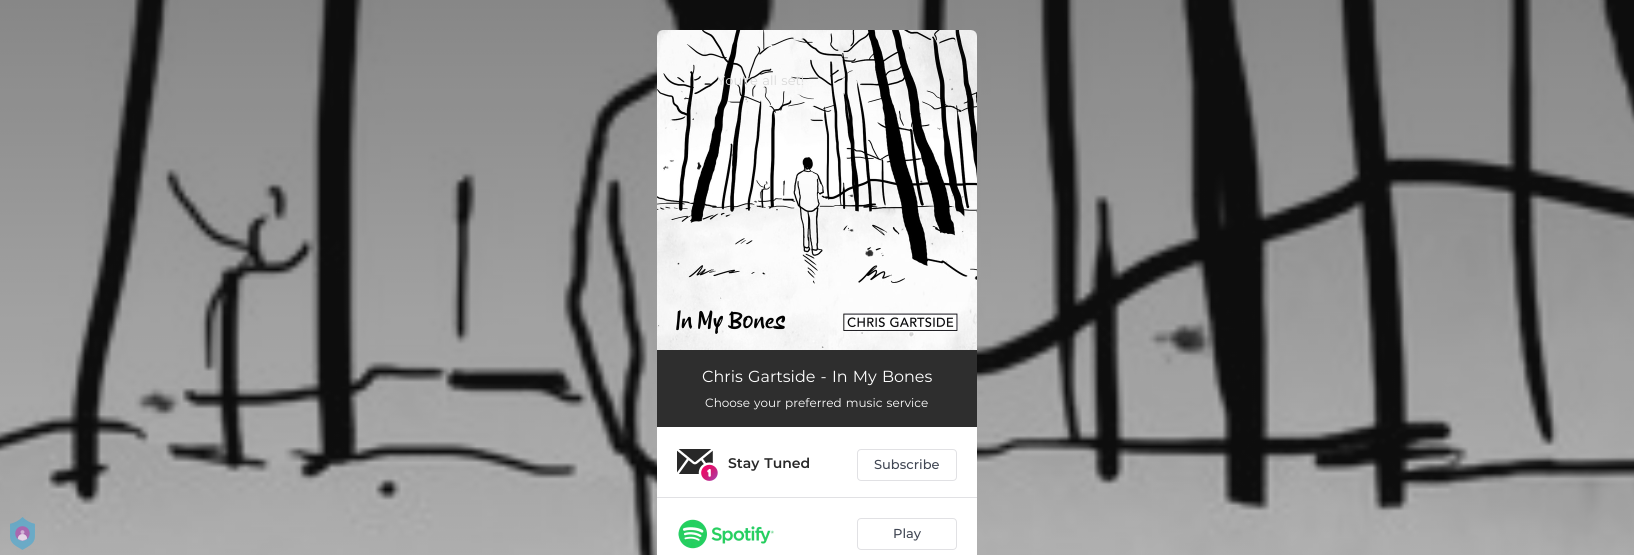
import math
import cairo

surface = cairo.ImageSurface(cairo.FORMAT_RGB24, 1634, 555)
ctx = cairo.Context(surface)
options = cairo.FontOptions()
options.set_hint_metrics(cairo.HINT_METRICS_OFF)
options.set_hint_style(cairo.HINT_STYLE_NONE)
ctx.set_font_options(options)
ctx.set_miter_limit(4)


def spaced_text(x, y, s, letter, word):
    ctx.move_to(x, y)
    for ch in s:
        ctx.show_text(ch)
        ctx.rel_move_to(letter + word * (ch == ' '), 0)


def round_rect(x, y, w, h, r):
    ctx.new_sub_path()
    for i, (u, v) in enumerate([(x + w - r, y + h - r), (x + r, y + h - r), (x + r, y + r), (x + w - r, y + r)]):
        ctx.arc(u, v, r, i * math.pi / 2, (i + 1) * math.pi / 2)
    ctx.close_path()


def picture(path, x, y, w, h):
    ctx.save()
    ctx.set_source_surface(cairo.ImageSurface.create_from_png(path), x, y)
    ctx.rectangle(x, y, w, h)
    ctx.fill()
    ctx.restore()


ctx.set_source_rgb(1, 1, 1)
ctx.paint()
picture("img2.png", 0, 0, 1634, 555)
picture("img1.png", 10, 517, 25, 33)
picture("img3.png", 657, 30, 320, 320)
ctx.select_font_face("Montserrat")
ctx.set_font_size(13)
ctx.set_source_rgb(0.851, 0.851, 0.851)
spaced_text(717, 85, "You're all set!", 0, 1)
ctx.set_source_rgb(0.18, 0.18, 0.18)
ctx.rectangle(657, 350, 320, 77)
ctx.fill()
ctx.set_font_size(16)
ctx.set_source_rgb(1, 1, 1)
spaced_text(702, 382, "Chris Gartside - In My Bones", 0, 1)
ctx.set_font_size(12)
spaced_text(705, 407, "Choose your preferred music service", 0, 1)
ctx.rectangle(657, 427, 320, 128)
ctx.fill()
ctx.set_source_rgb(0.882, 0.882, 0.894)
ctx.rectangle(657, 497, 320, 1)
ctx.fill()
picture("img4.png", 677, 449, 41, 32)
ctx.select_font_face("Montserrat SemiBold")
ctx.set_font_size(14)
ctx.set_source_rgb(0.157, 0.157, 0.157)
spaced_text(728, 468, "Stay Tuned", 0, 1)
round_rect(857.5, 449.5, 99, 31, 3.5)
ctx.set_source_rgb(0.882, 0.882, 0.894)
ctx.set_line_width(1)
ctx.stroke()
ctx.select_font_face("Montserrat Medium")
ctx.set_font_size(13)
ctx.set_source_rgb(0.255, 0.278, 0.329)
ctx.move_to(874, 469)
ctx.show_text("Subscribe")
picture("img5.png", 678, 519, 96, 30)
round_rect(857.5, 518.5, 99, 31, 3.5)
ctx.set_source_rgb(0.882, 0.882, 0.894)
ctx.stroke()
ctx.set_source_rgb(0.255, 0.278, 0.329)
ctx.move_to(893, 538)
ctx.show_text("Play")
surface.write_to_png("page.png")
